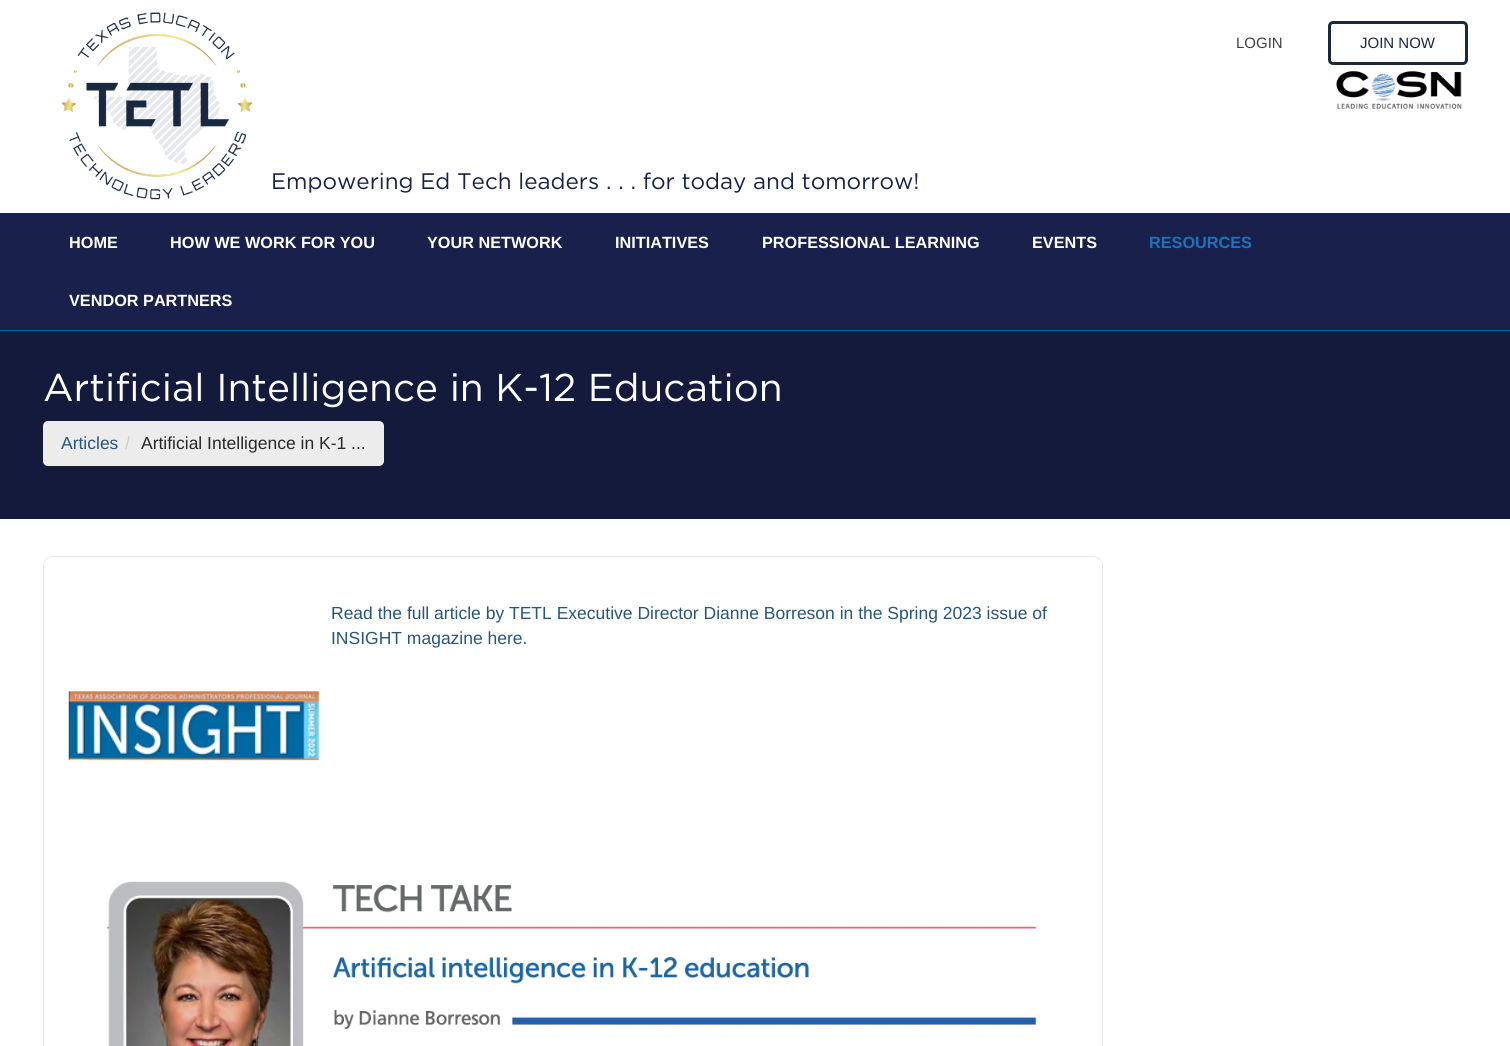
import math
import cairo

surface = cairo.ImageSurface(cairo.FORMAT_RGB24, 1510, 1046)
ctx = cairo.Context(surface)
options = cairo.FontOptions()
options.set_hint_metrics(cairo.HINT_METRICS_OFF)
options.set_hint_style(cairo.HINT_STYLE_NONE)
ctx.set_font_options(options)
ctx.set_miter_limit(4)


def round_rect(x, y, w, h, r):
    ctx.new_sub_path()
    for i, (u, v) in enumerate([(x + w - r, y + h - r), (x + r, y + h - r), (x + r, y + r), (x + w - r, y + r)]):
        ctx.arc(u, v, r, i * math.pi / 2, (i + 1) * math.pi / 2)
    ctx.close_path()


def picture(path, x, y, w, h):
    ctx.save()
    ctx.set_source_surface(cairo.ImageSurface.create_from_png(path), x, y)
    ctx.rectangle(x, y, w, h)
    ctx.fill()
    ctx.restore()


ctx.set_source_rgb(1, 1, 1)
ctx.paint()
ctx.select_font_face("Liberation Sans")
ctx.set_font_size(15)
ctx.set_source_rgb(0.251, 0.251, 0.251)
ctx.move_to(1236, 48)
ctx.show_text("LOGIN")
round_rect(1329.5, 22.5, 137, 41, 3.5)
ctx.set_source_rgb(0.102, 0.161, 0.251)
ctx.set_line_width(3)
ctx.stroke()
ctx.move_to(1360, 48)
ctx.show_text("JOIN NOW")
picture("img1.png", 1336, 71, 126, 38)
picture("img2.png", 61, 12, 192, 188)
ctx.select_font_face("Gotham")
ctx.set_font_size(22.5)
ctx.set_source_rgb(0.094, 0.125, 0.294)
ctx.move_to(271, 189)
ctx.show_text("Empowering Ed Tech leaders . . . for today and tomorrow!")
ctx.rectangle(0, 213, 1510, 117)
ctx.fill()
ctx.set_source_rgb(0, 0.376, 0.6)
ctx.rectangle(0, 330, 1510, 1)
ctx.fill()
ctx.select_font_face("Liberation Sans", cairo.FONT_SLANT_NORMAL, cairo.FONT_WEIGHT_BOLD)
ctx.set_font_size(16.25)
ctx.set_source_rgb(1, 1, 1)
ctx.move_to(69, 248)
ctx.show_text("HOME")
ctx.move_to(170, 248)
ctx.show_text("HOW WE WORK FOR YOU")
ctx.move_to(427, 248)
ctx.show_text("YOUR NETWORK")
ctx.move_to(615, 248)
ctx.show_text("INITIATIVES")
ctx.move_to(762, 248)
ctx.show_text("PROFESSIONAL LEARNING")
ctx.move_to(1032, 248)
ctx.show_text("EVENTS")
ctx.set_source_rgb(0.11, 0.459, 0.737)
ctx.move_to(1149, 248)
ctx.show_text("RESOURCES")
ctx.set_source_rgb(1, 1, 1)
ctx.move_to(69, 306)
ctx.show_text("VENDOR PARTNERS")
ctx.set_source_rgb(0.075, 0.102, 0.235)
ctx.rectangle(0, 331, 1510, 188)
ctx.fill()
ctx.select_font_face("Gotham")
ctx.set_font_size(38.75)
ctx.set_source_rgb(1, 1, 1)
ctx.move_to(43, 401)
ctx.show_text("Artificial Intelligence in K-12 Education")
ctx.set_source_rgb(0.925, 0.925, 0.925)
round_rect(43, 421, 341, 45, 5)
ctx.fill()
ctx.select_font_face("Liberation Sans")
ctx.set_font_size(17.5)
ctx.set_source_rgb(0.141, 0.337, 0.502)
ctx.move_to(61, 449)
ctx.show_text("Articles")
ctx.set_source_rgb(0.8, 0.8, 0.8)
ctx.move_to(125, 449)
ctx.show_text("/")
ctx.set_source_rgb(0.157, 0.157, 0.157)
ctx.move_to(141, 449)
ctx.show_text("Artificial Intelligence in K-1 ...")
round_rect(43.5, 556.5, 1059, 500, 9.5)
ctx.set_source_rgb(0.91, 0.91, 0.91)
ctx.set_line_width(1)
ctx.stroke()
ctx.set_source_rgb(0.141, 0.337, 0.502)
ctx.move_to(331, 619)
ctx.show_text("Read the full article by TETL Executive Director Dianne Borreson in the Spring 2023 issue of")
ctx.move_to(331, 644)
ctx.show_text("INSIGHT magazine here.")
picture("img3.png", 104, 881, 935, 165)
picture("img4.png", 68, 691, 251, 70)
surface.write_to_png("page.png")
